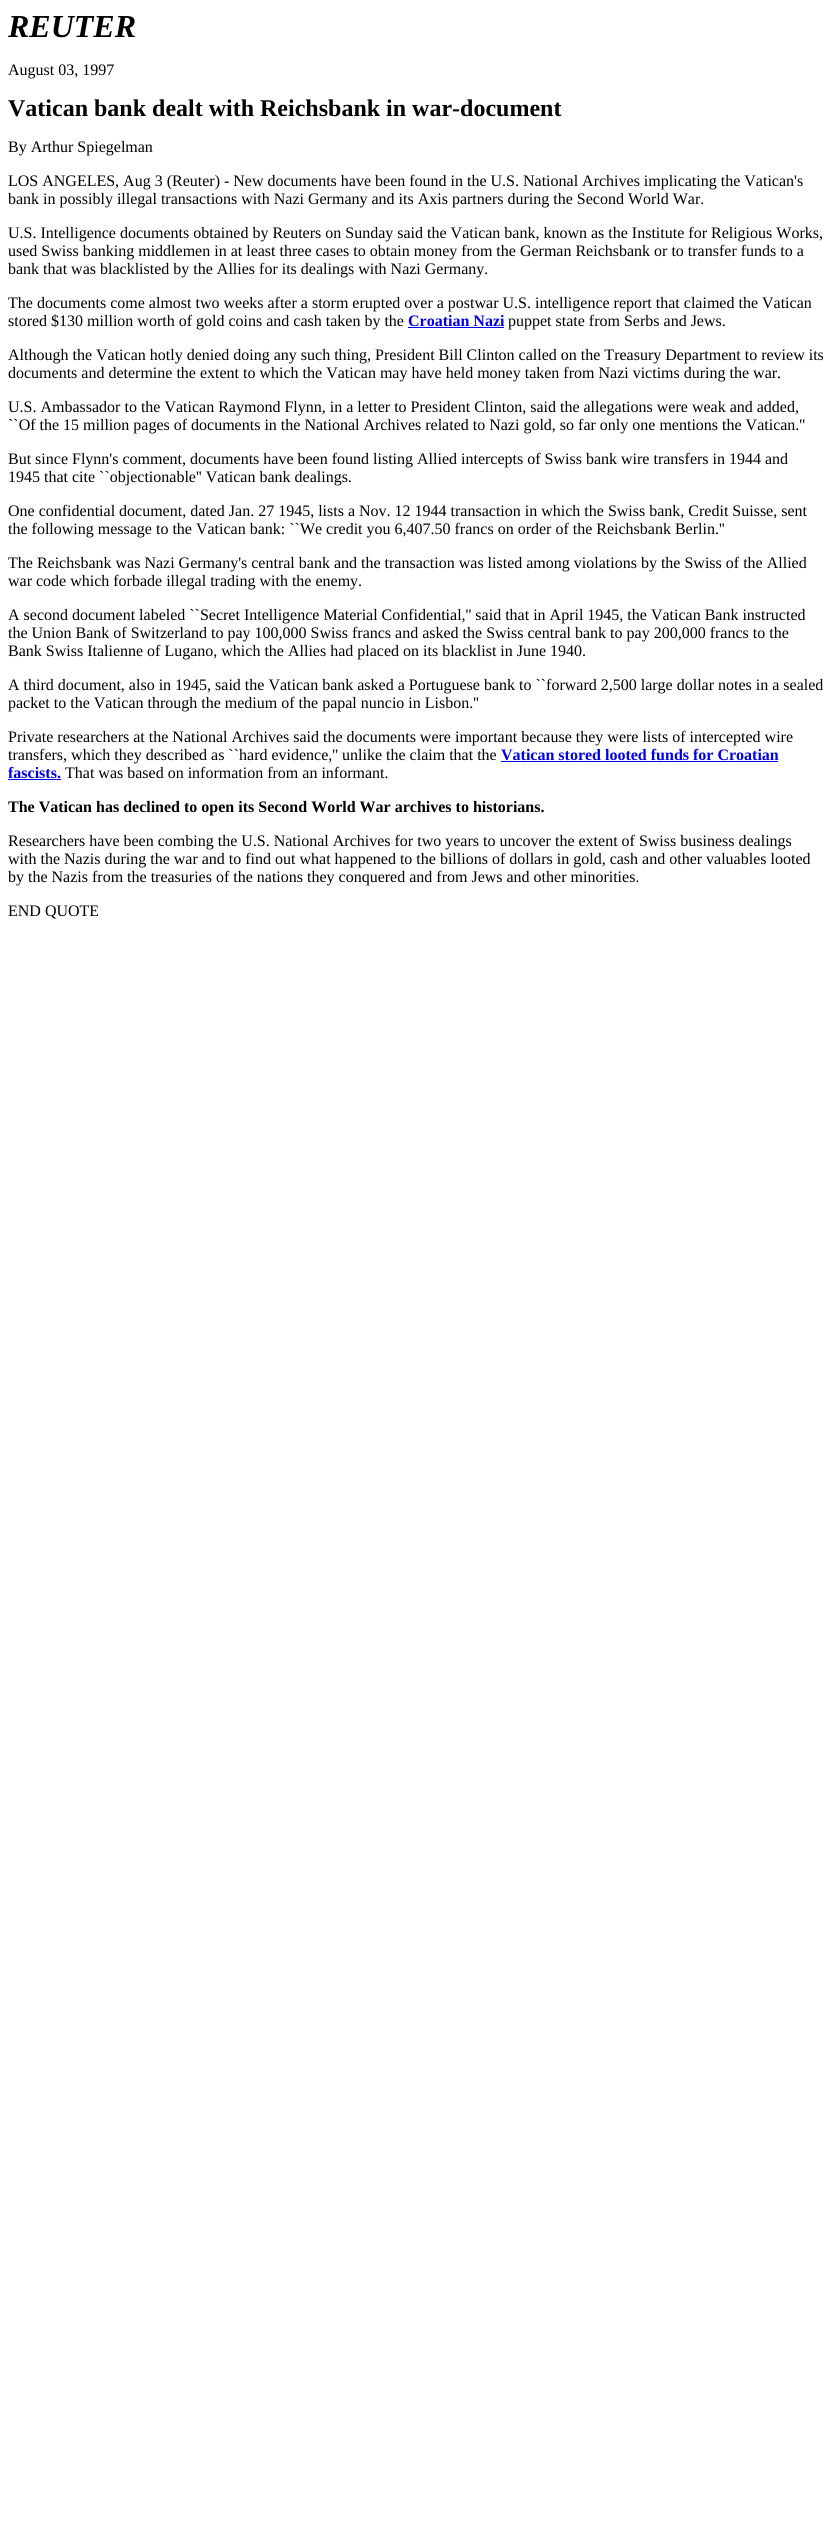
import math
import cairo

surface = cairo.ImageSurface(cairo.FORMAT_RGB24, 832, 2524)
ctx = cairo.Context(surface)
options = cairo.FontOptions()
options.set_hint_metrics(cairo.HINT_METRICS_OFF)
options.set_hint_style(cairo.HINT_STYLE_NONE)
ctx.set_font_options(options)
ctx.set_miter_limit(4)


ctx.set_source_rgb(1, 1, 1)
ctx.paint()
ctx.select_font_face("Liberation Serif", cairo.FONT_SLANT_ITALIC, cairo.FONT_WEIGHT_BOLD)
ctx.set_font_size(32)
ctx.set_source_rgb(0, 0, 0)
ctx.move_to(8, 37)
ctx.show_text("REUTER")
ctx.select_font_face("Liberation Serif")
ctx.set_font_size(16)
ctx.move_to(8, 75)
ctx.show_text("August 03, 1997")
ctx.select_font_face("Liberation Serif", cairo.FONT_SLANT_NORMAL, cairo.FONT_WEIGHT_BOLD)
ctx.set_font_size(24)
ctx.move_to(8, 116)
ctx.show_text("Vatican bank dealt with Reichsbank in war-document")
ctx.select_font_face("Liberation Serif")
ctx.set_font_size(16)
ctx.move_to(8, 152)
ctx.show_text("By Arthur Spiegelman")
ctx.move_to(8, 186)
ctx.show_text("LOS ANGELES, Aug 3 (Reuter) - New documents have been found in the U.S. National Archives implicating the Vatican's")
ctx.move_to(8, 204)
ctx.show_text("bank in possibly illegal transactions with Nazi Germany and its Axis partners during the Second World War.")
ctx.move_to(8, 238)
ctx.show_text("U.S. Intelligence documents obtained by Reuters on Sunday said the Vatican bank, known as the Institute for Religious Works,")
ctx.move_to(8, 256)
ctx.show_text("used Swiss banking middlemen in at least three cases to obtain money from the German Reichsbank or to transfer funds to a")
ctx.move_to(8, 274)
ctx.show_text("bank that was blacklisted by the Allies for its dealings with Nazi Germany.")
ctx.move_to(8, 308)
ctx.show_text("The documents come almost two weeks after a storm erupted over a postwar U.S. intelligence report that claimed the Vatican")
ctx.move_to(8, 326)
ctx.show_text("stored $130 million worth of gold coins and cash taken by the")
ctx.select_font_face("Liberation Serif", cairo.FONT_SLANT_NORMAL, cairo.FONT_WEIGHT_BOLD)
ctx.set_source_rgb(0, 0, 0.933)
ctx.move_to(408, 326)
ctx.show_text("Croatian Nazi")
ctx.rectangle(408, 327, 96, 1)
ctx.fill()
ctx.select_font_face("Liberation Serif")
ctx.set_source_rgb(0, 0, 0)
ctx.move_to(508, 326)
ctx.show_text("puppet state from Serbs and Jews.")
ctx.move_to(8, 360)
ctx.show_text("Although the Vatican hotly denied doing any such thing, President Bill Clinton called on the Treasury Department to review its")
ctx.move_to(8, 378)
ctx.show_text("documents and determine the extent to which the Vatican may have held money taken from Nazi victims during the war.")
ctx.move_to(8, 412)
ctx.show_text("U.S. Ambassador to the Vatican Raymond Flynn, in a letter to President Clinton, said the allegations were weak and added,")
ctx.move_to(8, 430)
ctx.show_text("``Of the 15 million pages of documents in the National Archives related to Nazi gold, so far only one mentions the Vatican.''")
ctx.move_to(8, 464)
ctx.show_text("But since Flynn's comment, documents have been found listing Allied intercepts of Swiss bank wire transfers in 1944 and")
ctx.move_to(8, 482)
ctx.show_text("1945 that cite ``objectionable'' Vatican bank dealings.")
ctx.move_to(8, 516)
ctx.show_text("One confidential document, dated Jan. 27 1945, lists a Nov. 12 1944 transaction in which the Swiss bank, Credit Suisse, sent")
ctx.move_to(8, 534)
ctx.show_text("the following message to the Vatican bank: ``We credit you 6,407.50 francs on order of the Reichsbank Berlin.''")
ctx.move_to(8, 568)
ctx.show_text("The Reichsbank was Nazi Germany's central bank and the transaction was listed among violations by the Swiss of the Allied")
ctx.move_to(8, 586)
ctx.show_text("war code which forbade illegal trading with the enemy.")
ctx.move_to(8, 620)
ctx.show_text("A second document labeled ``Secret Intelligence Material Confidential,'' said that in April 1945, the Vatican Bank instructed")
ctx.move_to(8, 638)
ctx.show_text("the Union Bank of Switzerland to pay 100,000 Swiss francs and asked the Swiss central bank to pay 200,000 francs to the")
ctx.move_to(8, 656)
ctx.show_text("Bank Swiss Italienne of Lugano, which the Allies had placed on its blacklist in June 1940.")
ctx.move_to(8, 690)
ctx.show_text("A third document, also in 1945, said the Vatican bank asked a Portuguese bank to ``forward 2,500 large dollar notes in a sealed")
ctx.move_to(8, 708)
ctx.show_text("packet to the Vatican through the medium of the papal nuncio in Lisbon.''")
ctx.move_to(8, 742)
ctx.show_text("Private researchers at the National Archives said the documents were important because they were lists of intercepted wire")
ctx.move_to(8, 760)
ctx.show_text("transfers, which they described as ``hard evidence,'' unlike the claim that the")
ctx.select_font_face("Liberation Serif", cairo.FONT_SLANT_NORMAL, cairo.FONT_WEIGHT_BOLD)
ctx.set_source_rgb(0, 0, 0.933)
ctx.move_to(501, 760)
ctx.show_text("Vatican stored looted funds for Croatian")
ctx.rectangle(501, 761, 277, 1)
ctx.fill()
ctx.move_to(8, 778)
ctx.show_text("fascists.")
ctx.rectangle(8, 779, 53, 1)
ctx.fill()
ctx.select_font_face("Liberation Serif")
ctx.set_source_rgb(0, 0, 0)
ctx.move_to(65, 778)
ctx.show_text("That was based on information from an informant.")
ctx.select_font_face("Liberation Serif", cairo.FONT_SLANT_NORMAL, cairo.FONT_WEIGHT_BOLD)
ctx.move_to(8, 812)
ctx.show_text("The Vatican has declined to open its Second World War archives to historians.")
ctx.select_font_face("Liberation Serif")
ctx.move_to(8, 846)
ctx.show_text("Researchers have been combing the U.S. National Archives for two years to uncover the extent of Swiss business dealings")
ctx.move_to(8, 864)
ctx.show_text("with the Nazis during the war and to find out what happened to the billions of dollars in gold, cash and other valuables looted")
ctx.move_to(8, 882)
ctx.show_text("by the Nazis from the treasuries of the nations they conquered and from Jews and other minorities.")
ctx.move_to(8, 916)
ctx.show_text("END QUOTE")
surface.write_to_png("page.png")
